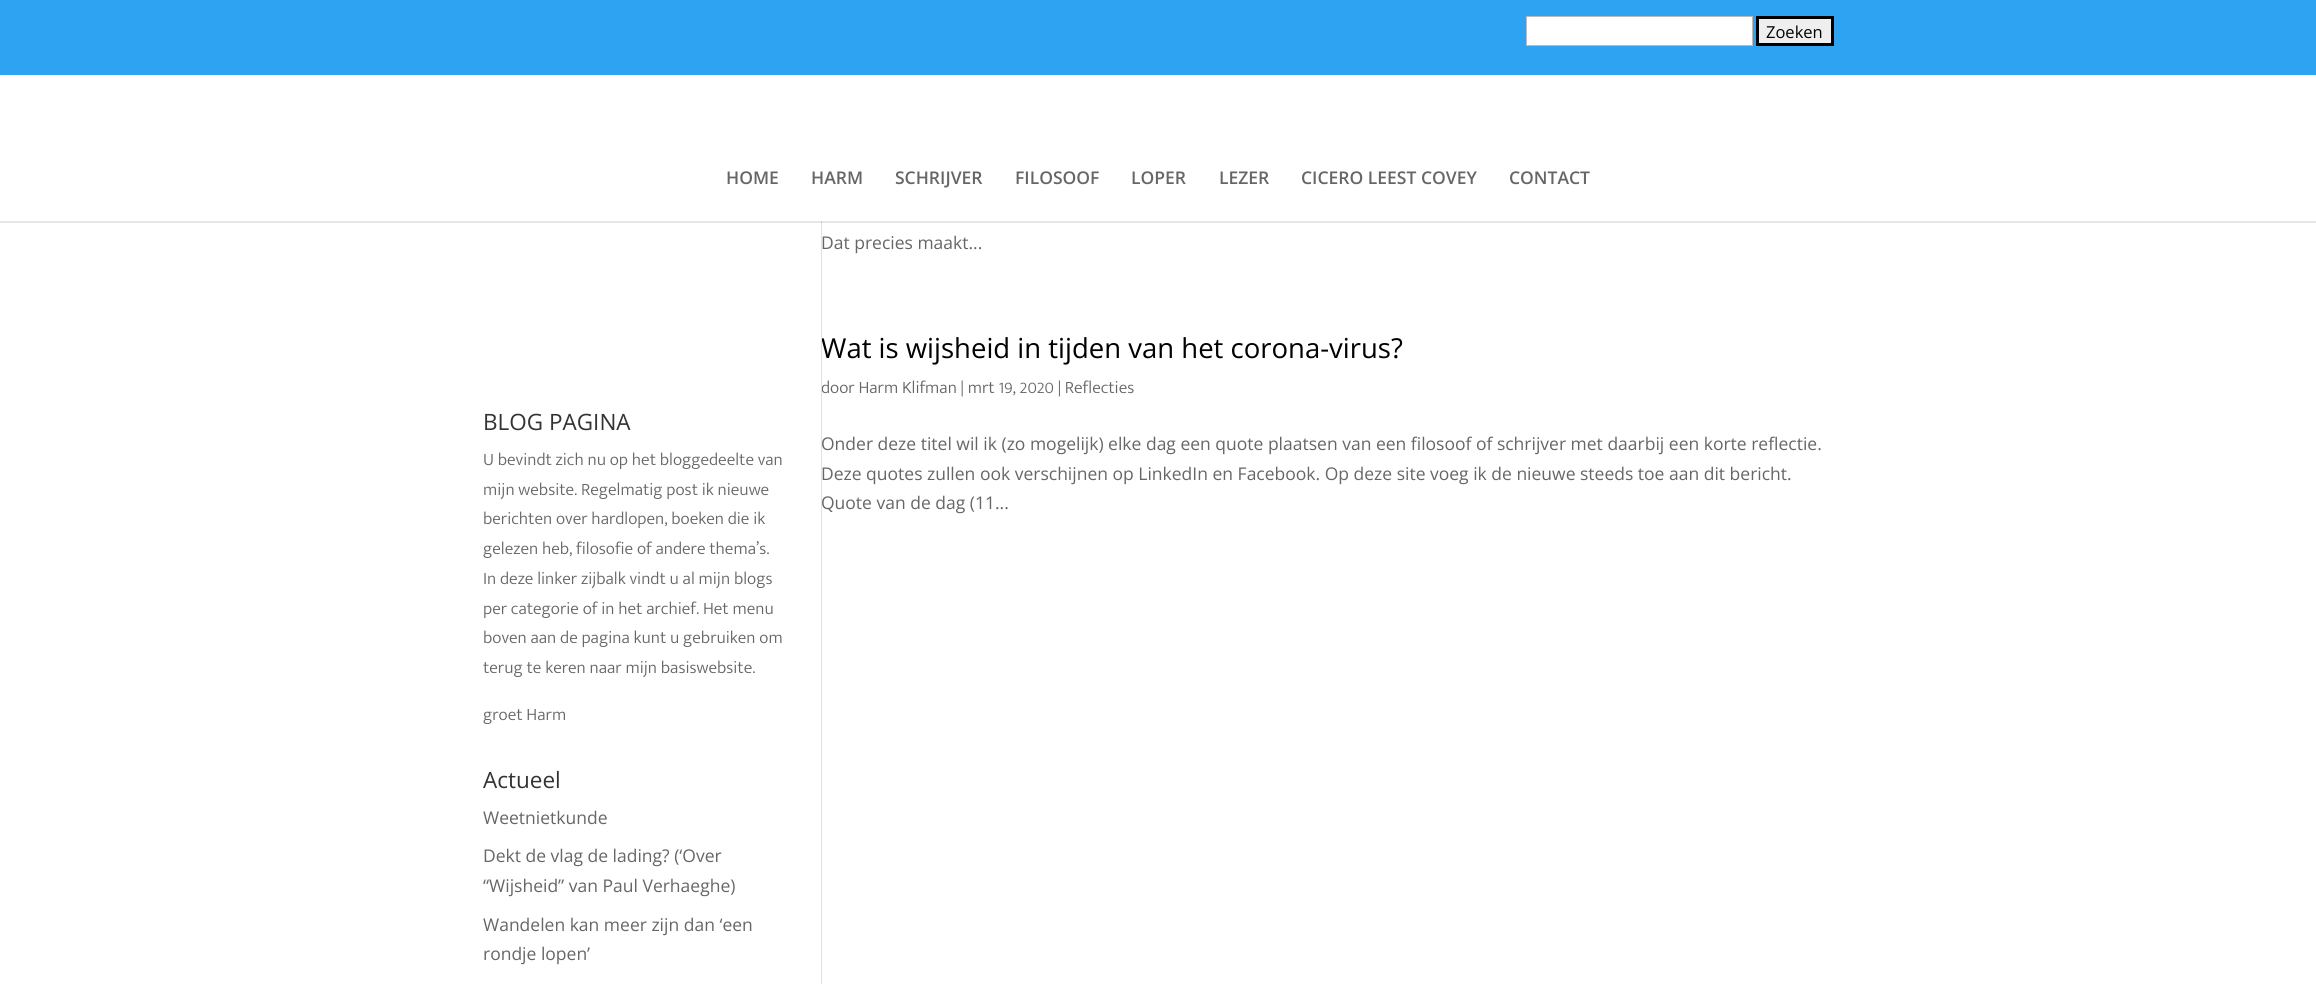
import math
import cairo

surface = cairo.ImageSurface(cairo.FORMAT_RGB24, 2316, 984)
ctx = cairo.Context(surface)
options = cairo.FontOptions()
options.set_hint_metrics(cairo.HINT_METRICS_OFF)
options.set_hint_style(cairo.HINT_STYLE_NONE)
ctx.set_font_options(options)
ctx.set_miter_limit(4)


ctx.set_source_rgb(1, 1, 1)
ctx.paint()
ctx.set_source_rgb(0.18, 0.639, 0.949)
ctx.rectangle(0, 0, 2316, 75)
ctx.fill()
ctx.set_source_rgb(1, 1, 1)
ctx.rectangle(1526.5, 16.5, 226, 29)
ctx.fill_preserve()
ctx.set_source_rgb(0.733, 0.733, 0.733)
ctx.set_line_width(1)
ctx.stroke()
ctx.set_source_rgb(0.937, 0.937, 0.937)
ctx.rectangle(1757.5, 17.5, 75, 27)
ctx.fill_preserve()
ctx.set_source_rgb(0, 0, 0)
ctx.set_line_width(3)
ctx.stroke()
ctx.select_font_face("Open Sans")
ctx.set_font_size(16.5)
ctx.move_to(1766, 38)
ctx.show_text("Zoeken")
ctx.set_font_size(27.5)
ctx.move_to(821, 358)
ctx.show_text("Wat is wijsheid in tijden van het corona-virus?")
ctx.select_font_face("Mukta Mahee Light")
ctx.set_font_size(17.5)
ctx.set_source_rgb(0.4, 0.4, 0.4)
ctx.move_to(821, 393)
ctx.show_text("door Harm Klifman | mrt 19, 2020 | Reflecties")
ctx.select_font_face("Open Sans")
ctx.move_to(821, 450)
ctx.show_text("Onder deze titel wil ik (zo mogelijk) elke dag een quote plaatsen van een filosoof of schrijver met daarbij een korte reflectie.")
ctx.move_to(821, 509)
ctx.show_text("Quote van de dag (11...")
ctx.set_source_rgb(0.886, 0.886, 0.886)
ctx.rectangle(821, 221, 1, 763)
ctx.fill()
ctx.set_source_rgba(0, 0, 0, 0.1)
ctx.rectangle(0, 221, 2316, 2)
ctx.fill()
ctx.select_font_face("Open Sans SemiBold")
ctx.set_source_rgb(0.4, 0.4, 0.4)
ctx.move_to(726, 184)
ctx.show_text("HOME")
ctx.move_to(811, 184)
ctx.show_text("HARM")
ctx.move_to(895, 184)
ctx.show_text("SCHRIJVER")
ctx.move_to(1015, 184)
ctx.show_text("FILOSOOF")
ctx.move_to(1131, 184)
ctx.show_text("LOPER")
ctx.move_to(1219, 184)
ctx.show_text("LEZER")
ctx.move_to(1301, 184)
ctx.show_text("CICERO LEEST COVEY")
ctx.move_to(1509, 184)
ctx.show_text("CONTACT")
ctx.select_font_face("Open Sans")
ctx.move_to(821, 249)
ctx.show_text("Dat precies maakt...")
ctx.move_to(821, 480)
ctx.show_text("Deze quotes zullen ook verschijnen op LinkedIn en Facebook. Op deze site voeg ik de nieuwe steeds toe aan dit bericht.")
ctx.set_font_size(22.5)
ctx.set_source_rgb(0.2, 0.2, 0.2)
ctx.move_to(483, 430)
ctx.show_text("BLOG PAGINA")
ctx.select_font_face("Mukta Mahee Light")
ctx.set_font_size(17.5)
ctx.set_source_rgb(0.4, 0.4, 0.4)
ctx.move_to(483, 465)
ctx.show_text("U bevindt zich nu op het bloggedeelte van")
ctx.move_to(483, 495)
ctx.show_text("mijn website. Regelmatig post ik nieuwe")
ctx.move_to(483, 524)
ctx.show_text("berichten over hardlopen, boeken die ik")
ctx.move_to(483, 554)
ctx.show_text("gelezen heb, filosofie of andere thema’s.")
ctx.move_to(483, 584)
ctx.show_text("In deze linker zijbalk vindt u al mijn blogs")
ctx.move_to(483, 614)
ctx.show_text("per categorie of in het archief. Het menu")
ctx.move_to(483, 643)
ctx.show_text("boven aan de pagina kunt u gebruiken om")
ctx.move_to(483, 673)
ctx.show_text("terug te keren naar mijn basiswebsite.")
ctx.move_to(483, 720)
ctx.show_text("groet Harm")
ctx.select_font_face("Open Sans")
ctx.set_font_size(22.5)
ctx.set_source_rgb(0.2, 0.2, 0.2)
ctx.move_to(483, 788)
ctx.show_text("Actueel")
ctx.set_font_size(17.5)
ctx.set_source_rgb(0.4, 0.4, 0.4)
ctx.move_to(483, 824)
ctx.show_text("Weetnietkunde")
ctx.move_to(483, 862)
ctx.show_text("Dekt de vlag de lading? (‘Over")
ctx.move_to(483, 892)
ctx.show_text("“Wijsheid” van Paul Verhaeghe)")
ctx.move_to(483, 931)
ctx.show_text("Wandelen kan meer zijn dan ‘een")
ctx.move_to(483, 960)
ctx.show_text("rondje lopen’")
surface.write_to_png("page.png")
